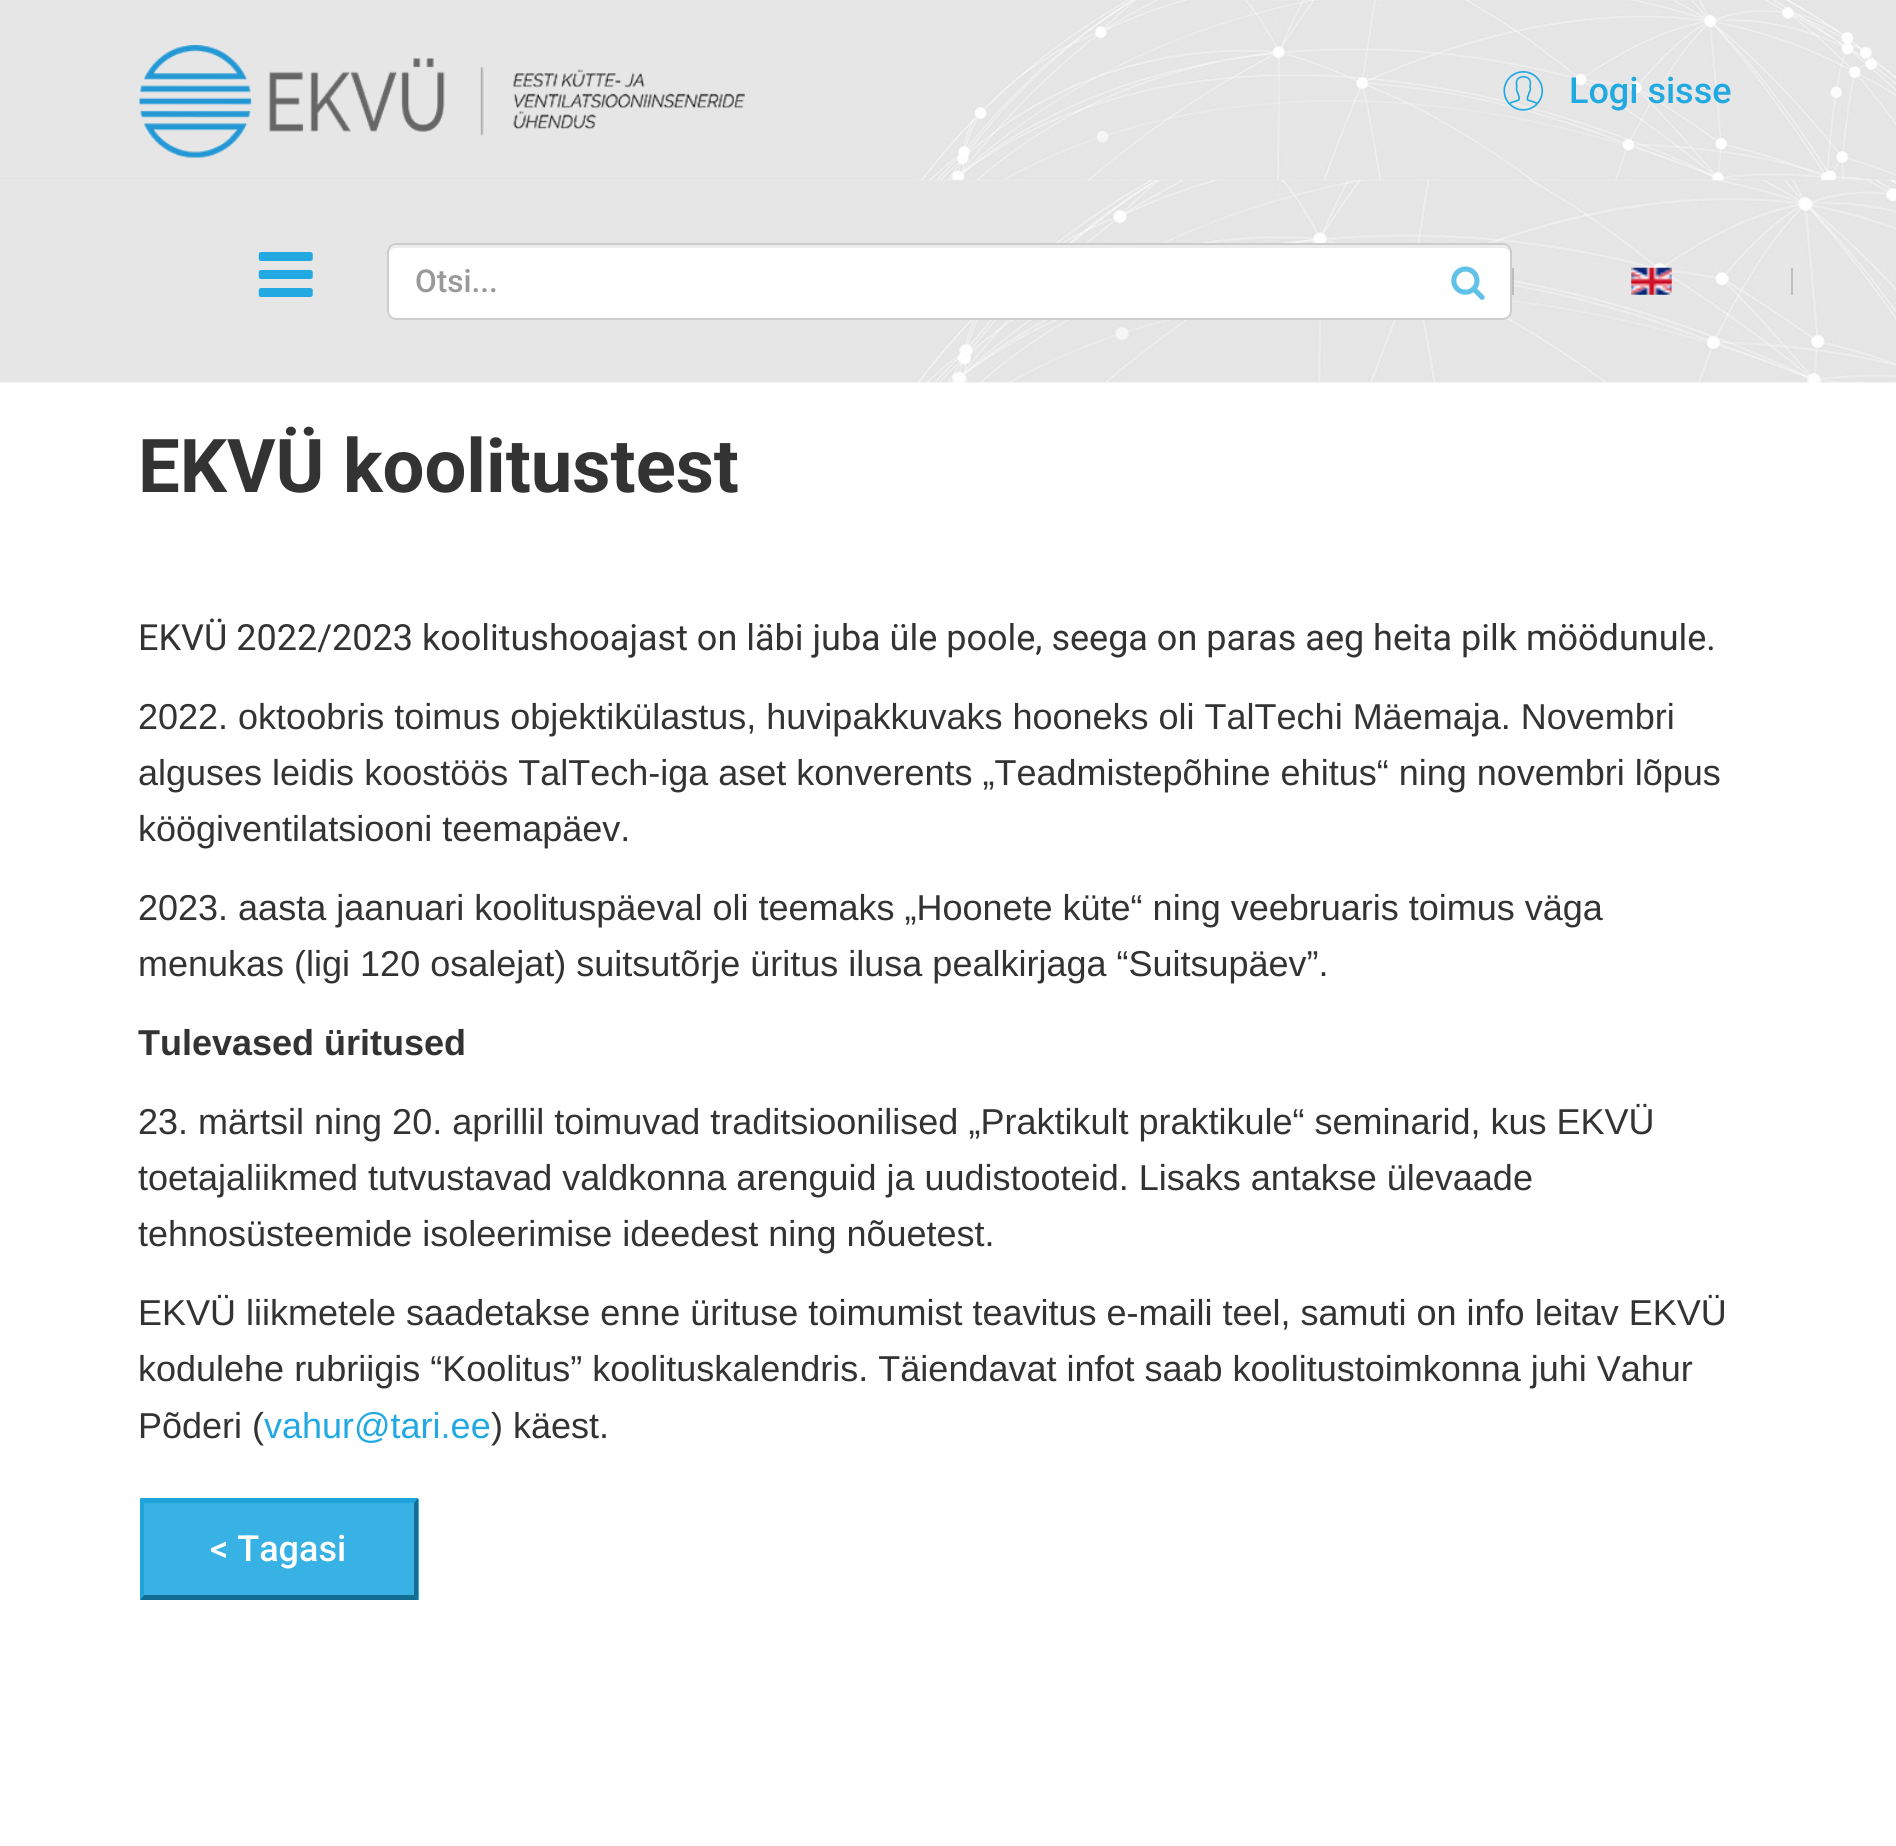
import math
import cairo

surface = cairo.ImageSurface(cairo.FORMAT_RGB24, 1896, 1846)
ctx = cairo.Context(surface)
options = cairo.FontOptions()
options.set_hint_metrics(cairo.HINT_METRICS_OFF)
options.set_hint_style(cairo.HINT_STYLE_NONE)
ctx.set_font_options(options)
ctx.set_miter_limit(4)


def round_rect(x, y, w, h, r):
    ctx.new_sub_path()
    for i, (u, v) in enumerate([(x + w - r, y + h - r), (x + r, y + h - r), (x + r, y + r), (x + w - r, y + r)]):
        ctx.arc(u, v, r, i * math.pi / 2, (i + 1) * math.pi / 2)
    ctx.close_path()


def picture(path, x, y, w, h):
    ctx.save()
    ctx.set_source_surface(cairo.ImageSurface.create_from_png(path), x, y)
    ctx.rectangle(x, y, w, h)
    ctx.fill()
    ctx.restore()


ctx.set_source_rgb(1, 1, 1)
ctx.paint()
picture("img1.png", 0, 0, 1896, 180)
picture("img2.png", 139, 45, 606, 113)
picture("img3.png", 1503, 71, 41, 40)
ctx.select_font_face("Roboto Medium")
ctx.set_font_size(36)
ctx.set_source_rgb(0.133, 0.663, 0.882)
ctx.move_to(1569, 103)
ctx.show_text("Logi sisse")
picture("img4.png", 0, 180, 1896, 203)
picture("img5.png", 258, 252, 55, 45)
ctx.set_source_rgb(1, 1, 1)
round_rect(387, 243, 1125, 77, 9)
ctx.fill()
ctx.set_source_rgb(0.925, 0.925, 0.925)
ctx.new_path()
ctx.move_to(396, 248)
ctx.line_to(1503, 248)
ctx.curve_to(1507, 248, 1510, 251, 1510, 254)
ctx.line_to(1510, 252)
ctx.curve_to(1510, 248, 1507, 245, 1503, 245)
ctx.line_to(396, 245)
ctx.curve_to(392, 245, 389, 248, 389, 252)
ctx.line_to(389, 254)
ctx.curve_to(389, 251, 392, 248, 396, 248)
ctx.close_path()
ctx.fill()
round_rect(388, 244, 1123, 75, 8)
ctx.set_source_rgb(0.8, 0.8, 0.8)
ctx.stroke()
ctx.set_font_size(31.5)
ctx.set_source_rgb(0.6, 0.6, 0.6)
ctx.move_to(415, 292)
ctx.show_text("Otsi...")
picture("img6.png", 1451, 266, 34, 34)
ctx.set_source_rgb(0.745, 0.745, 0.745)
ctx.rectangle(1791, 268, 2, 27)
ctx.fill()
ctx.set_source_rgba(0.506, 0.506, 0.506, 0.4)
ctx.rectangle(1512, 268, 2, 27)
ctx.fill()
picture("img7.png", 1631, 267, 41, 28)
ctx.select_font_face("Roboto", cairo.FONT_SLANT_NORMAL, cairo.FONT_WEIGHT_BOLD)
ctx.set_font_size(74.25)
ctx.set_source_rgb(0.2, 0.2, 0.2)
ctx.move_to(138, 492)
ctx.show_text("EKVÜ koolitustest")
ctx.select_font_face("Roboto")
ctx.set_font_size(36)
ctx.move_to(138, 650)
ctx.show_text("EKVÜ 2022/2023 koolitushooajast on läbi juba üle poole, seega on paras aeg heita pilk möödunule.")
ctx.select_font_face("Liberation Sans")
ctx.move_to(138, 729)
ctx.show_text("2022. oktoobris toimus objektikülastus, huvipakkuvaks hooneks oli TalTechi Mäemaja. Novembri")
ctx.move_to(138, 785)
ctx.show_text("alguses leidis koostöös TalTech-iga aset konverents „Teadmistepõhine ehitus“ ning novembri lõpus")
ctx.move_to(138, 841)
ctx.show_text("köögiventilatsiooni teemapäev.")
ctx.move_to(138, 920)
ctx.show_text("2023. aasta jaanuari koolituspäeval oli teemaks „Hoonete küte“ ning veebruaris toimus väga")
ctx.move_to(138, 976)
ctx.show_text("menukas (ligi 120 osalejat) suitsutõrje üritus ilusa pealkirjaga “Suitsupäev”.")
ctx.select_font_face("Liberation Sans", cairo.FONT_SLANT_NORMAL, cairo.FONT_WEIGHT_BOLD)
ctx.move_to(138, 1055)
ctx.show_text("Tulevased üritused")
ctx.select_font_face("Liberation Sans")
ctx.move_to(138, 1134)
ctx.show_text("23. märtsil ning 20. aprillil toimuvad traditsioonilised „Praktikult praktikule“ seminarid, kus EKVÜ")
ctx.move_to(138, 1190)
ctx.show_text("toetajaliikmed tutvustavad valdkonna arenguid ja uudistooteid. Lisaks antakse ülevaade")
ctx.move_to(138, 1246)
ctx.show_text("tehnosüsteemide isoleerimise ideedest ning nõuetest.")
ctx.move_to(138, 1325)
ctx.show_text("EKVÜ liikmetele saadetakse enne ürituse toimumist teavitus e-maili teel, samuti on info leitav EKVÜ")
ctx.move_to(138, 1381)
ctx.show_text("kodulehe rubriigis “Koolitus” koolituskalendris. Täiendavat infot saab koolitustoimkonna juhi Vahur")
ctx.move_to(138, 1438)
ctx.show_text("Põderi (")
ctx.set_source_rgb(0.133, 0.663, 0.882)
ctx.move_to(264, 1438)
ctx.show_text("vahur@tari.ee")
ctx.set_source_rgb(0.2, 0.2, 0.2)
ctx.move_to(491, 1438)
ctx.show_text(") käest.")
ctx.set_source_rgb(0.22, 0.698, 0.894)
ctx.rectangle(140, 1499, 279, 101)
ctx.fill()
ctx.set_source_rgb(0.118, 0.643, 0.859)
ctx.new_path()
ctx.move_to(140, 1498)
ctx.line_to(418, 1498)
ctx.line_to(414, 1503)
ctx.line_to(144, 1503)
ctx.close_path()
ctx.fill()
ctx.set_source_rgb(0.078, 0.427, 0.573)
ctx.new_path()
ctx.move_to(418, 1498)
ctx.line_to(418, 1600)
ctx.line_to(414, 1595)
ctx.line_to(414, 1503)
ctx.close_path()
ctx.fill()
ctx.new_path()
ctx.move_to(418, 1600)
ctx.line_to(140, 1600)
ctx.line_to(144, 1595)
ctx.line_to(414, 1595)
ctx.close_path()
ctx.fill()
ctx.set_source_rgb(0.118, 0.643, 0.859)
ctx.new_path()
ctx.move_to(140, 1600)
ctx.line_to(140, 1498)
ctx.line_to(144, 1503)
ctx.line_to(144, 1595)
ctx.close_path()
ctx.fill()
ctx.select_font_face("Roboto Medium")
ctx.set_source_rgb(1, 1, 1)
ctx.move_to(210, 1561)
ctx.show_text("< Tagasi")
surface.write_to_png("page.png")
